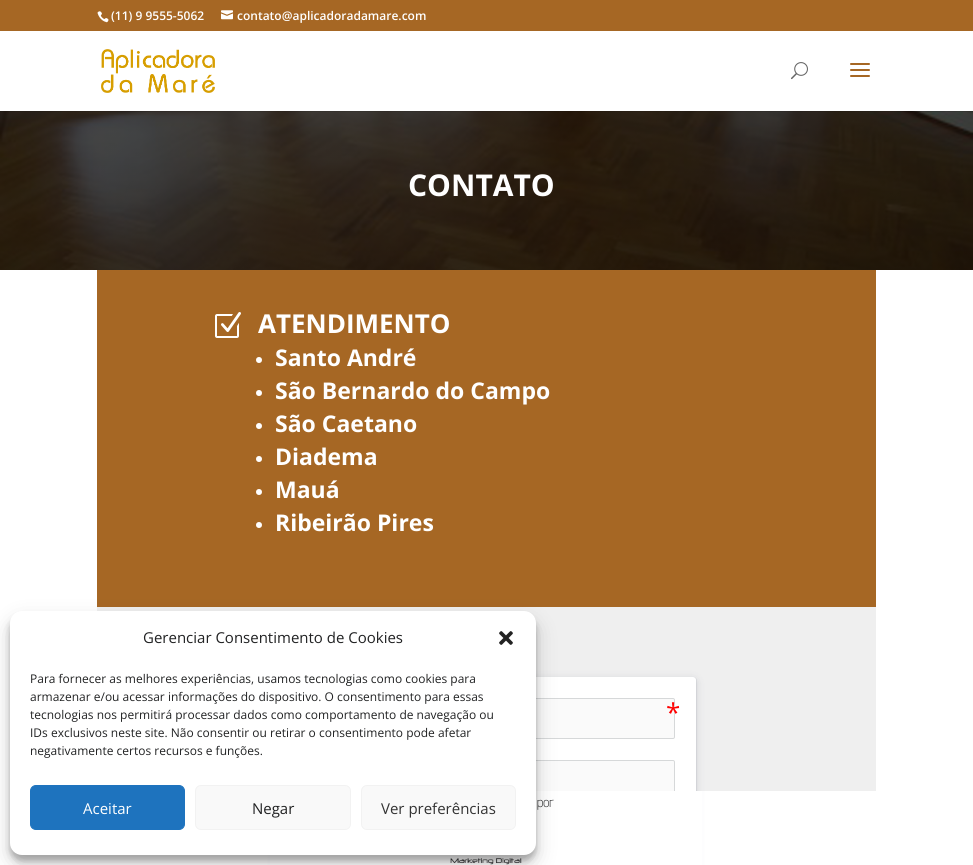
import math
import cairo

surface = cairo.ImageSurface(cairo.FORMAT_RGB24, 973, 865)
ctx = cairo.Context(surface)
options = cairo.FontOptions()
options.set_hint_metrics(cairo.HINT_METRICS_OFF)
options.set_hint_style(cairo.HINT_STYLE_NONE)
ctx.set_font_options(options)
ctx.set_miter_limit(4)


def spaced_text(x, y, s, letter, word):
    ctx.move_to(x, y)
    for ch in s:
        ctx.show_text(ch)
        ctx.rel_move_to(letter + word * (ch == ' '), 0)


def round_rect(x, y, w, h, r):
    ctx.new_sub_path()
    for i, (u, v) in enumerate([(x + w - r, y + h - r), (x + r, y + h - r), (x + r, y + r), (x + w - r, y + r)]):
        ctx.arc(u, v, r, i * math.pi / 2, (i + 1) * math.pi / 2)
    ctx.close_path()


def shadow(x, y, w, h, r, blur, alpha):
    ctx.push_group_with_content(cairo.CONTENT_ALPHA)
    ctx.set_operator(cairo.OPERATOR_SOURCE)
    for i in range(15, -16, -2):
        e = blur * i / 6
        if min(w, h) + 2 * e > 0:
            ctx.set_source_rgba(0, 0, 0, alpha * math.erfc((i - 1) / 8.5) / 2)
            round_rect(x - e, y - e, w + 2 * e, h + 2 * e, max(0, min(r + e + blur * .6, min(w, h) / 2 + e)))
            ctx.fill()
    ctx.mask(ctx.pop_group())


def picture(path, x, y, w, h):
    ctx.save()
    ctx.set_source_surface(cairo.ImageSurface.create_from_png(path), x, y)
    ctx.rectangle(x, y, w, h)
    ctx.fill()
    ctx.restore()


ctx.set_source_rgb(1, 1, 1)
ctx.paint()
ctx.set_source_rgb(0.651, 0.404, 0.141)
ctx.rectangle(0, 0, 973, 31)
ctx.fill()
picture("img1.png", 97, 11, 12, 12)
ctx.select_font_face("Open Sans SemiBold")
ctx.set_font_size(12)
ctx.set_source_rgb(1, 1, 1)
ctx.move_to(111, 20)
ctx.show_text("(11) 9 9555-5062")
picture("img2.png", 221, 10, 12, 10)
ctx.move_to(237, 20)
ctx.show_text("contato@aplicadoradamare.com")
picture("img6.png", 0, 111, 973, 159)
ctx.set_source_rgba(0, 0, 0, 0.1)
ctx.rectangle(0, 111, 973, 1)
ctx.fill()
picture("img3.png", 101, 49, 114, 44)
picture("img4.png", 791, 62, 17, 18)
picture("img5.png", 850, 63, 20, 14)
ctx.select_font_face("Open Sans", cairo.FONT_SLANT_NORMAL, cairo.FONT_WEIGHT_BOLD)
ctx.set_font_size(30)
ctx.set_source_rgb(1, 1, 1)
ctx.move_to(408, 196)
ctx.show_text("CONTATO")
ctx.set_source_rgb(0.937, 0.937, 0.937)
ctx.rectangle(97, 607, 779, 184)
ctx.fill()
ctx.set_source_rgb(0.651, 0.404, 0.141)
ctx.rectangle(97, 270, 779, 337)
ctx.fill()
picture("img7.png", 215, 312, 26, 26)
ctx.set_font_size(26)
ctx.set_source_rgb(1, 1, 1)
ctx.move_to(258, 333)
ctx.show_text("ATENDIMENTO")
ctx.new_path()
ctx.arc(259, 360, 3, 0, 2 * math.pi)
ctx.fill()
ctx.set_font_size(23)
ctx.move_to(275, 366)
ctx.show_text("Santo André")
ctx.new_path()
ctx.arc(259, 393, 3, 0, 2 * math.pi)
ctx.fill()
ctx.move_to(275, 399)
ctx.show_text("São Bernardo do Campo")
ctx.new_path()
ctx.arc(259, 426, 3, 0, 2 * math.pi)
ctx.fill()
ctx.move_to(275, 432)
ctx.show_text("São Caetano")
ctx.new_path()
ctx.arc(259, 459, 3, 0, 2 * math.pi)
ctx.fill()
ctx.move_to(275, 465)
ctx.show_text("Diadema")
ctx.new_path()
ctx.arc(259, 492, 3, 0, 2 * math.pi)
ctx.fill()
ctx.move_to(275, 498)
ctx.show_text("Mauá")
ctx.new_path()
ctx.arc(259, 525, 3, 0, 2 * math.pi)
ctx.fill()
ctx.move_to(275, 531)
ctx.show_text("Ribeirão Pires")
ctx.set_source_rgb(0.196, 0.216, 0.353)
shadow(276, 679, 420, 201, 3, 4, 0.2)
round_rect(276.25, 677.25, 420.5, 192.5, 3.75)
ctx.set_source_rgba(0, 0.078, 0.157, 0.1)
ctx.set_line_width(0.5)
ctx.stroke()
ctx.set_source_rgb(1, 1, 1)
round_rect(276, 677, 420, 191, 3)
ctx.fill()
ctx.set_source_rgb(0.98, 0.98, 0.98)
round_rect(297.5, 698.5, 377, 40, 1.5)
ctx.fill_preserve()
ctx.set_source_rgb(0.839, 0.847, 0.851)
ctx.set_line_width(1)
ctx.stroke()
ctx.select_font_face("Open Sans")
ctx.set_font_size(26)
ctx.set_source_rgb(1, 0, 0)
spaced_text(666, 722, "*", -4, 0)
ctx.set_source_rgb(0.98, 0.98, 0.98)
round_rect(297.5, 760.5, 377, 40, 1.5)
ctx.fill_preserve()
ctx.set_source_rgb(0.839, 0.847, 0.851)
ctx.stroke()
ctx.set_source_rgb(1, 1, 1)
ctx.rectangle(270, 791, 432, 74)
ctx.fill()
ctx.select_font_face("Advent Pro Light")
ctx.set_font_size(14)
ctx.set_source_rgb(0.129, 0.133, 0.137)
ctx.move_to(537, 807)
ctx.show_text("por")
picture("img8.png", 450, 858, 72, 7)
ctx.set_source_rgb(0, 0, 0)
shadow(10, 617, 526, 244, 12, 3, 0.23)
shadow(10, 621, 526, 244, 12, 10, 0.19)
ctx.set_source_rgb(1, 1, 1)
round_rect(10, 611, 526, 244, 12)
ctx.fill()
ctx.select_font_face("Open Sans")
ctx.set_font_size(15)
ctx.set_source_rgb(0.129, 0.133, 0.137)
ctx.move_to(143, 643)
ctx.show_text("Gerenciar Consentimento de Cookies")
picture("img9.png", 499, 631, 14, 14)
ctx.set_font_size(12)
ctx.move_to(30, 683)
ctx.show_text("Para fornecer as melhores experiências, usamos tecnologias como cookies para")
ctx.move_to(30, 701)
ctx.show_text("armazenar e/ou acessar informações do dispositivo. O consentimento para essas")
ctx.move_to(30, 719)
ctx.show_text("tecnologias nos permitirá processar dados como comportamento de navegação ou")
ctx.move_to(30, 737)
ctx.show_text("IDs exclusivos neste site. Não consentir ou retirar o consentimento pode afetar")
ctx.move_to(30, 755)
ctx.show_text("negativamente certos recursos e funções.")
ctx.set_source_rgb(0.118, 0.451, 0.745)
round_rect(30.5, 785.5, 154, 44, 5.5)
ctx.fill_preserve()
ctx.stroke()
ctx.set_font_size(15)
ctx.set_source_rgb(1, 1, 1)
ctx.move_to(83, 814)
ctx.show_text("Aceitar")
ctx.set_source_rgb(0.976, 0.976, 0.976)
round_rect(195.5, 785.5, 155, 44, 5.5)
ctx.fill_preserve()
ctx.set_source_rgb(0.949, 0.949, 0.949)
ctx.stroke()
ctx.set_source_rgb(0.129, 0.133, 0.137)
ctx.move_to(252, 814)
ctx.show_text("Negar")
ctx.set_source_rgb(0.976, 0.976, 0.976)
round_rect(361.5, 785.5, 154, 44, 5.5)
ctx.fill_preserve()
ctx.set_source_rgb(0.949, 0.949, 0.949)
ctx.stroke()
ctx.set_source_rgb(0.2, 0.2, 0.2)
ctx.move_to(381, 814)
ctx.show_text("Ver preferências")
surface.write_to_png("page.png")
